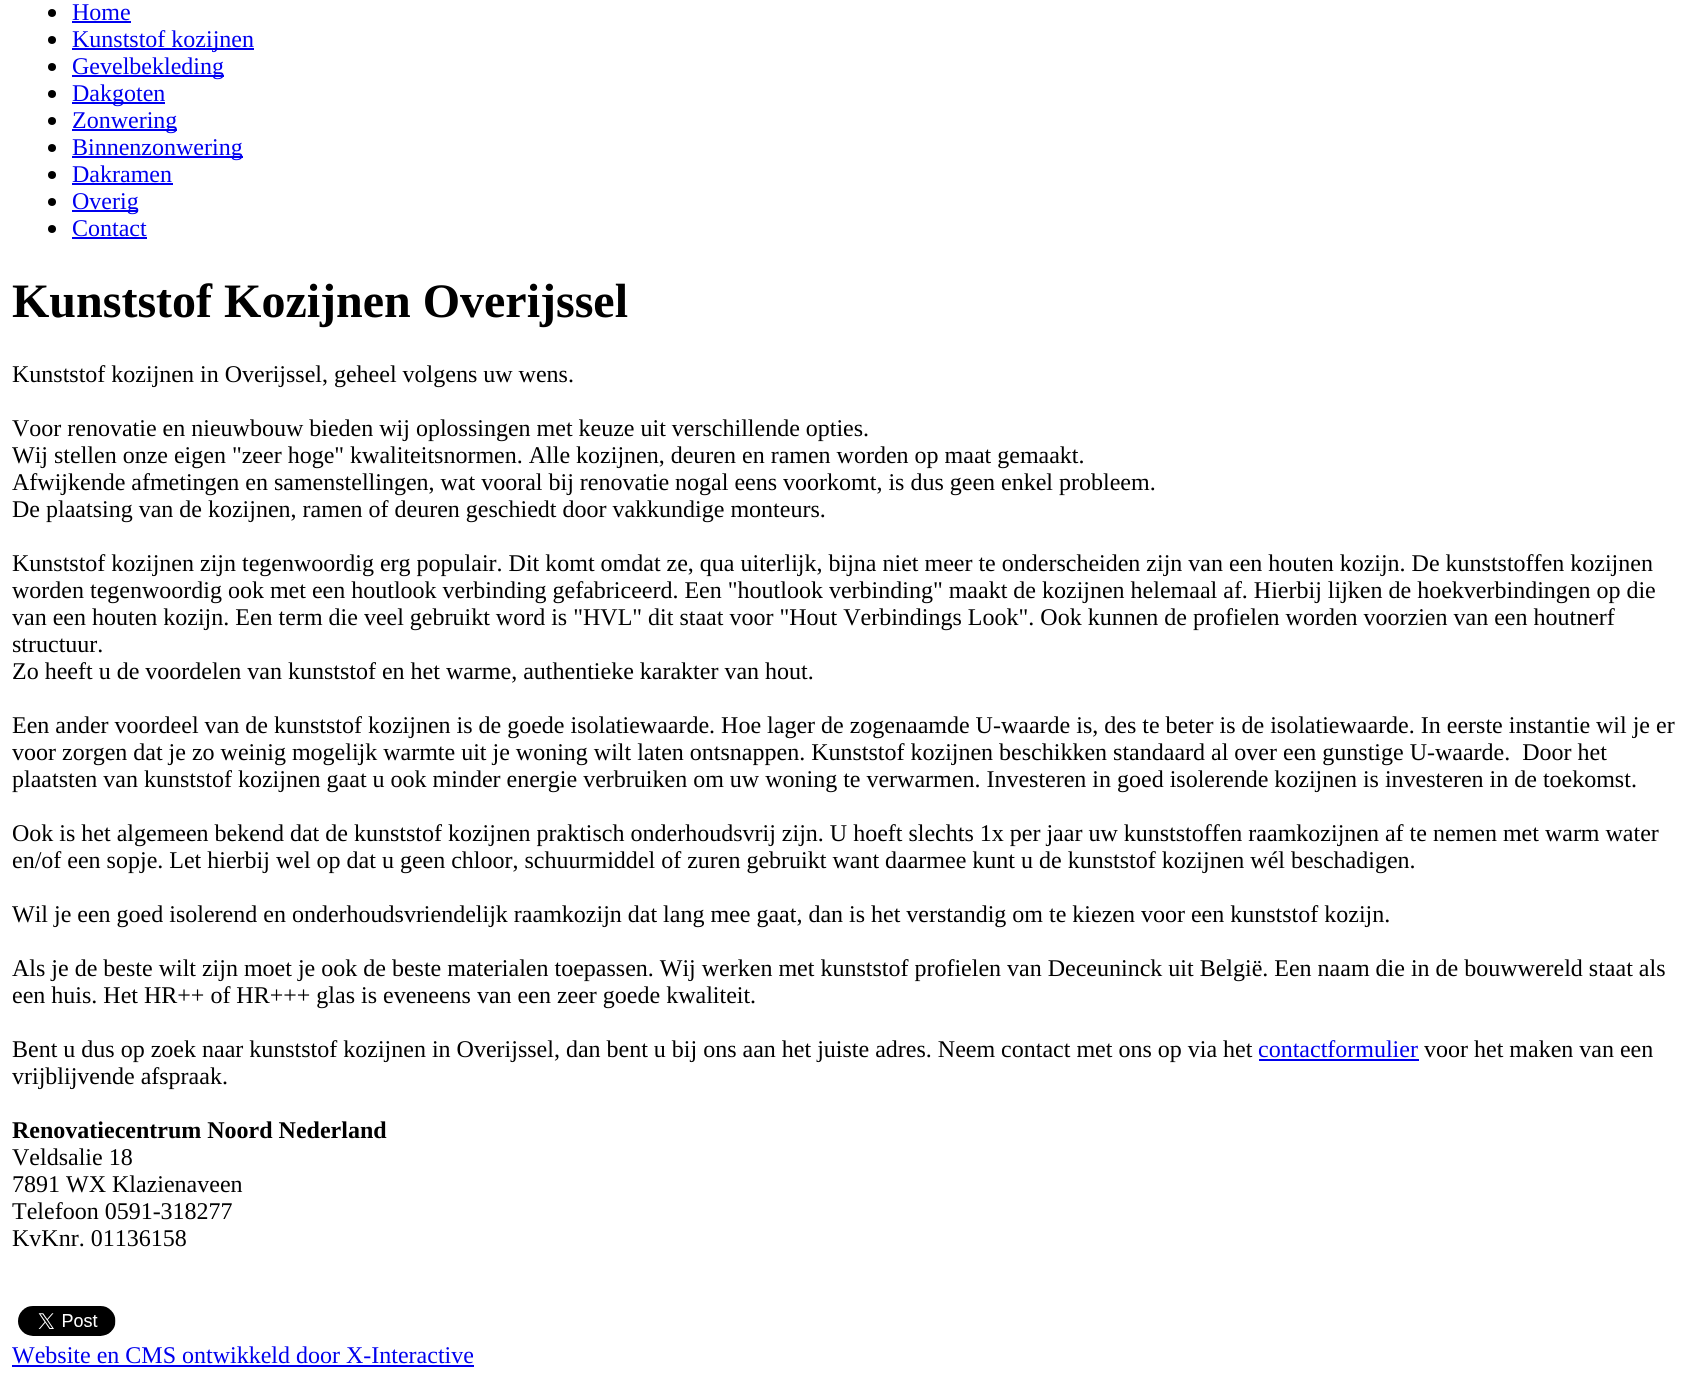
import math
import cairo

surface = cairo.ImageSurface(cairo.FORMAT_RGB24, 1696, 1373)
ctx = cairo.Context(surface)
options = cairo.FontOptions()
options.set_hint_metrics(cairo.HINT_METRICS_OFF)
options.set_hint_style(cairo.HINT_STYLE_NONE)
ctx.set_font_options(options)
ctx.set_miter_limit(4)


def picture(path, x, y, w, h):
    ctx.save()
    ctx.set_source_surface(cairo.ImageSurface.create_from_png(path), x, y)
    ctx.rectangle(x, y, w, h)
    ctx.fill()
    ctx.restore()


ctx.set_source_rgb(1, 1, 1)
ctx.paint()
ctx.set_source_rgb(0, 0, 0)
ctx.arc(52, 13, 4, 0, 2 * math.pi)
ctx.fill()
ctx.select_font_face("Liberation Serif")
ctx.set_font_size(24)
ctx.set_source_rgb(0, 0, 0.933)
ctx.move_to(72, 20)
ctx.show_text("Home")
ctx.rectangle(72, 21, 59, 2)
ctx.fill()
ctx.set_source_rgb(0, 0, 0)
ctx.arc(52, 40, 4, 0, 2 * math.pi)
ctx.fill()
ctx.set_source_rgb(0, 0, 0.933)
ctx.rectangle(72, 48, 182, 2)
ctx.fill()
ctx.move_to(72, 47)
ctx.show_text("Kunststof kozijnen")
ctx.set_source_rgb(0, 0, 0)
ctx.new_path()
ctx.arc(52, 67, 4, 0, 2 * math.pi)
ctx.fill()
ctx.set_source_rgb(0, 0, 0.933)
ctx.rectangle(72, 75, 152, 2)
ctx.fill()
ctx.move_to(72, 74)
ctx.show_text("Gevelbekleding")
ctx.set_source_rgb(0, 0, 0)
ctx.new_path()
ctx.arc(52, 94, 4, 0, 2 * math.pi)
ctx.fill()
ctx.set_source_rgb(0, 0, 0.933)
ctx.rectangle(72, 102, 93, 2)
ctx.fill()
ctx.move_to(72, 101)
ctx.show_text("Dakgoten")
ctx.set_source_rgb(0, 0, 0)
ctx.new_path()
ctx.arc(52, 121, 4, 0, 2 * math.pi)
ctx.fill()
ctx.set_source_rgb(0, 0, 0.933)
ctx.rectangle(72, 129, 105, 2)
ctx.fill()
ctx.move_to(72, 128)
ctx.show_text("Zonwering")
ctx.set_source_rgb(0, 0, 0)
ctx.new_path()
ctx.arc(52, 148, 4, 0, 2 * math.pi)
ctx.fill()
ctx.set_source_rgb(0, 0, 0.933)
ctx.rectangle(72, 156, 171, 2)
ctx.fill()
ctx.move_to(72, 155)
ctx.show_text("Binnenzonwering")
ctx.set_source_rgb(0, 0, 0)
ctx.new_path()
ctx.arc(52, 175, 4, 0, 2 * math.pi)
ctx.fill()
ctx.set_source_rgb(0, 0, 0.933)
ctx.move_to(72, 182)
ctx.show_text("Dakramen")
ctx.rectangle(72, 183, 101, 2)
ctx.fill()
ctx.set_source_rgb(0, 0, 0)
ctx.arc(52, 202, 4, 0, 2 * math.pi)
ctx.fill()
ctx.set_source_rgb(0, 0, 0.933)
ctx.rectangle(72, 210, 66, 2)
ctx.fill()
ctx.move_to(72, 209)
ctx.show_text("Overig")
ctx.set_source_rgb(0, 0, 0)
ctx.new_path()
ctx.arc(52, 229, 4, 0, 2 * math.pi)
ctx.fill()
ctx.set_source_rgb(0, 0, 0.933)
ctx.move_to(72, 236)
ctx.show_text("Contact")
ctx.rectangle(72, 237, 75, 2)
ctx.fill()
ctx.select_font_face("Liberation Serif", cairo.FONT_SLANT_NORMAL, cairo.FONT_WEIGHT_BOLD)
ctx.set_font_size(48)
ctx.set_source_rgb(0, 0, 0)
ctx.move_to(12, 317)
ctx.show_text("Kunststof Kozijnen Overijssel")
ctx.select_font_face("Liberation Serif")
ctx.set_font_size(24)
ctx.move_to(12, 382)
ctx.show_text("Kunststof kozijnen in Overijssel, geheel volgens uw wens.")
ctx.move_to(12, 436)
ctx.show_text("Voor renovatie en nieuwbouw bieden wij oplossingen met keuze uit verschillende opties.")
ctx.move_to(12, 463)
ctx.show_text("Wij stellen onze eigen \"zeer hoge\" kwaliteitsnormen. Alle kozijnen, deuren en ramen worden op maat gemaakt.")
ctx.move_to(12, 490)
ctx.show_text("Afwijkende afmetingen en samenstellingen, wat vooral bij renovatie nogal eens voorkomt, is dus geen enkel probleem.")
ctx.move_to(12, 517)
ctx.show_text("De plaatsing van de kozijnen, ramen of deuren geschiedt door vakkundige monteurs.")
ctx.move_to(12, 571)
ctx.show_text("Kunststof kozijnen zijn tegenwoordig erg populair. Dit komt omdat ze, qua uiterlijk, bijna niet meer te onderscheiden zijn van een houten kozijn. De kunststoffen kozijnen")
ctx.move_to(12, 598)
ctx.show_text("worden tegenwoordig ook met een houtlook verbinding gefabriceerd. Een \"houtlook verbinding\" maakt de kozijnen helemaal af. Hierbij lijken de hoekverbindingen op die")
ctx.move_to(12, 625)
ctx.show_text("van een houten kozijn. Een term die veel gebruikt word is \"HVL\" dit staat voor \"Hout Verbindings Look\". Ook kunnen de profielen worden voorzien van een houtnerf")
ctx.move_to(12, 652)
ctx.show_text("structuur.")
ctx.move_to(12, 679)
ctx.show_text("Zo heeft u de voordelen van kunststof en het warme, authentieke karakter van hout.")
ctx.move_to(12, 733)
ctx.show_text("Een ander voordeel van de kunststof kozijnen is de goede isolatiewaarde. Hoe lager de zogenaamde U-waarde is, des te beter is de isolatiewaarde. In eerste instantie wil je er")
ctx.move_to(12, 760)
ctx.show_text("voor zorgen dat je zo weinig mogelijk warmte uit je woning wilt laten ontsnappen. Kunststof kozijnen beschikken standaard al over een gunstige U-waarde.  Door het")
ctx.move_to(12, 787)
ctx.show_text("plaatsten van kunststof kozijnen gaat u ook minder energie verbruiken om uw woning te verwarmen. Investeren in goed isolerende kozijnen is investeren in de toekomst.")
ctx.move_to(12, 841)
ctx.show_text("Ook is het algemeen bekend dat de kunststof kozijnen praktisch onderhoudsvrij zijn. U hoeft slechts 1x per jaar uw kunststoffen raamkozijnen af te nemen met warm water")
ctx.move_to(12, 868)
ctx.show_text("en/of een sopje. Let hierbij wel op dat u geen chloor, schuurmiddel of zuren gebruikt want daarmee kunt u de kunststof kozijnen wél beschadigen.")
ctx.move_to(12, 922)
ctx.show_text("Wil je een goed isolerend en onderhoudsvriendelijk raamkozijn dat lang mee gaat, dan is het verstandig om te kiezen voor een kunststof kozijn.")
ctx.move_to(12, 976)
ctx.show_text("Als je de beste wilt zijn moet je ook de beste materialen toepassen. Wij werken met kunststof profielen van Deceuninck uit België. Een naam die in de bouwwereld staat als")
ctx.move_to(12, 1003)
ctx.show_text("een huis. Het HR++ of HR+++ glas is eveneens van een zeer goede kwaliteit.")
ctx.move_to(12, 1057)
ctx.show_text("Bent u dus op zoek naar kunststof kozijnen in Overijssel, dan bent u bij ons aan het juiste adres. Neem contact met ons op via het")
ctx.set_source_rgb(0, 0, 0.933)
ctx.move_to(1258, 1057)
ctx.show_text("contactformulier")
ctx.rectangle(1259, 1059, 160, 2)
ctx.fill()
ctx.set_source_rgb(0, 0, 0)
ctx.move_to(1424, 1057)
ctx.show_text("voor het maken van een")
ctx.move_to(12, 1084)
ctx.show_text("vrijblijvende afspraak.")
ctx.select_font_face("Liberation Serif", cairo.FONT_SLANT_NORMAL, cairo.FONT_WEIGHT_BOLD)
ctx.move_to(12, 1138)
ctx.show_text("Renovatiecentrum Noord Nederland")
ctx.select_font_face("Liberation Serif")
ctx.move_to(12, 1165)
ctx.show_text("Veldsalie 18")
ctx.move_to(12, 1192)
ctx.show_text("7891 WX Klazienaveen")
ctx.move_to(12, 1219)
ctx.show_text("Telefoon 0591-318277")
ctx.move_to(12, 1246)
ctx.show_text("KvKnr. 01136158")
picture("img1.png", 18, 1306, 98, 30)
ctx.set_source_rgb(0, 0, 0.933)
ctx.move_to(12, 1363)
ctx.show_text("Website en CMS ontwikkeld door X-Interactive")
ctx.rectangle(12, 1365, 462, 2)
ctx.fill()
surface.write_to_png("page.png")
